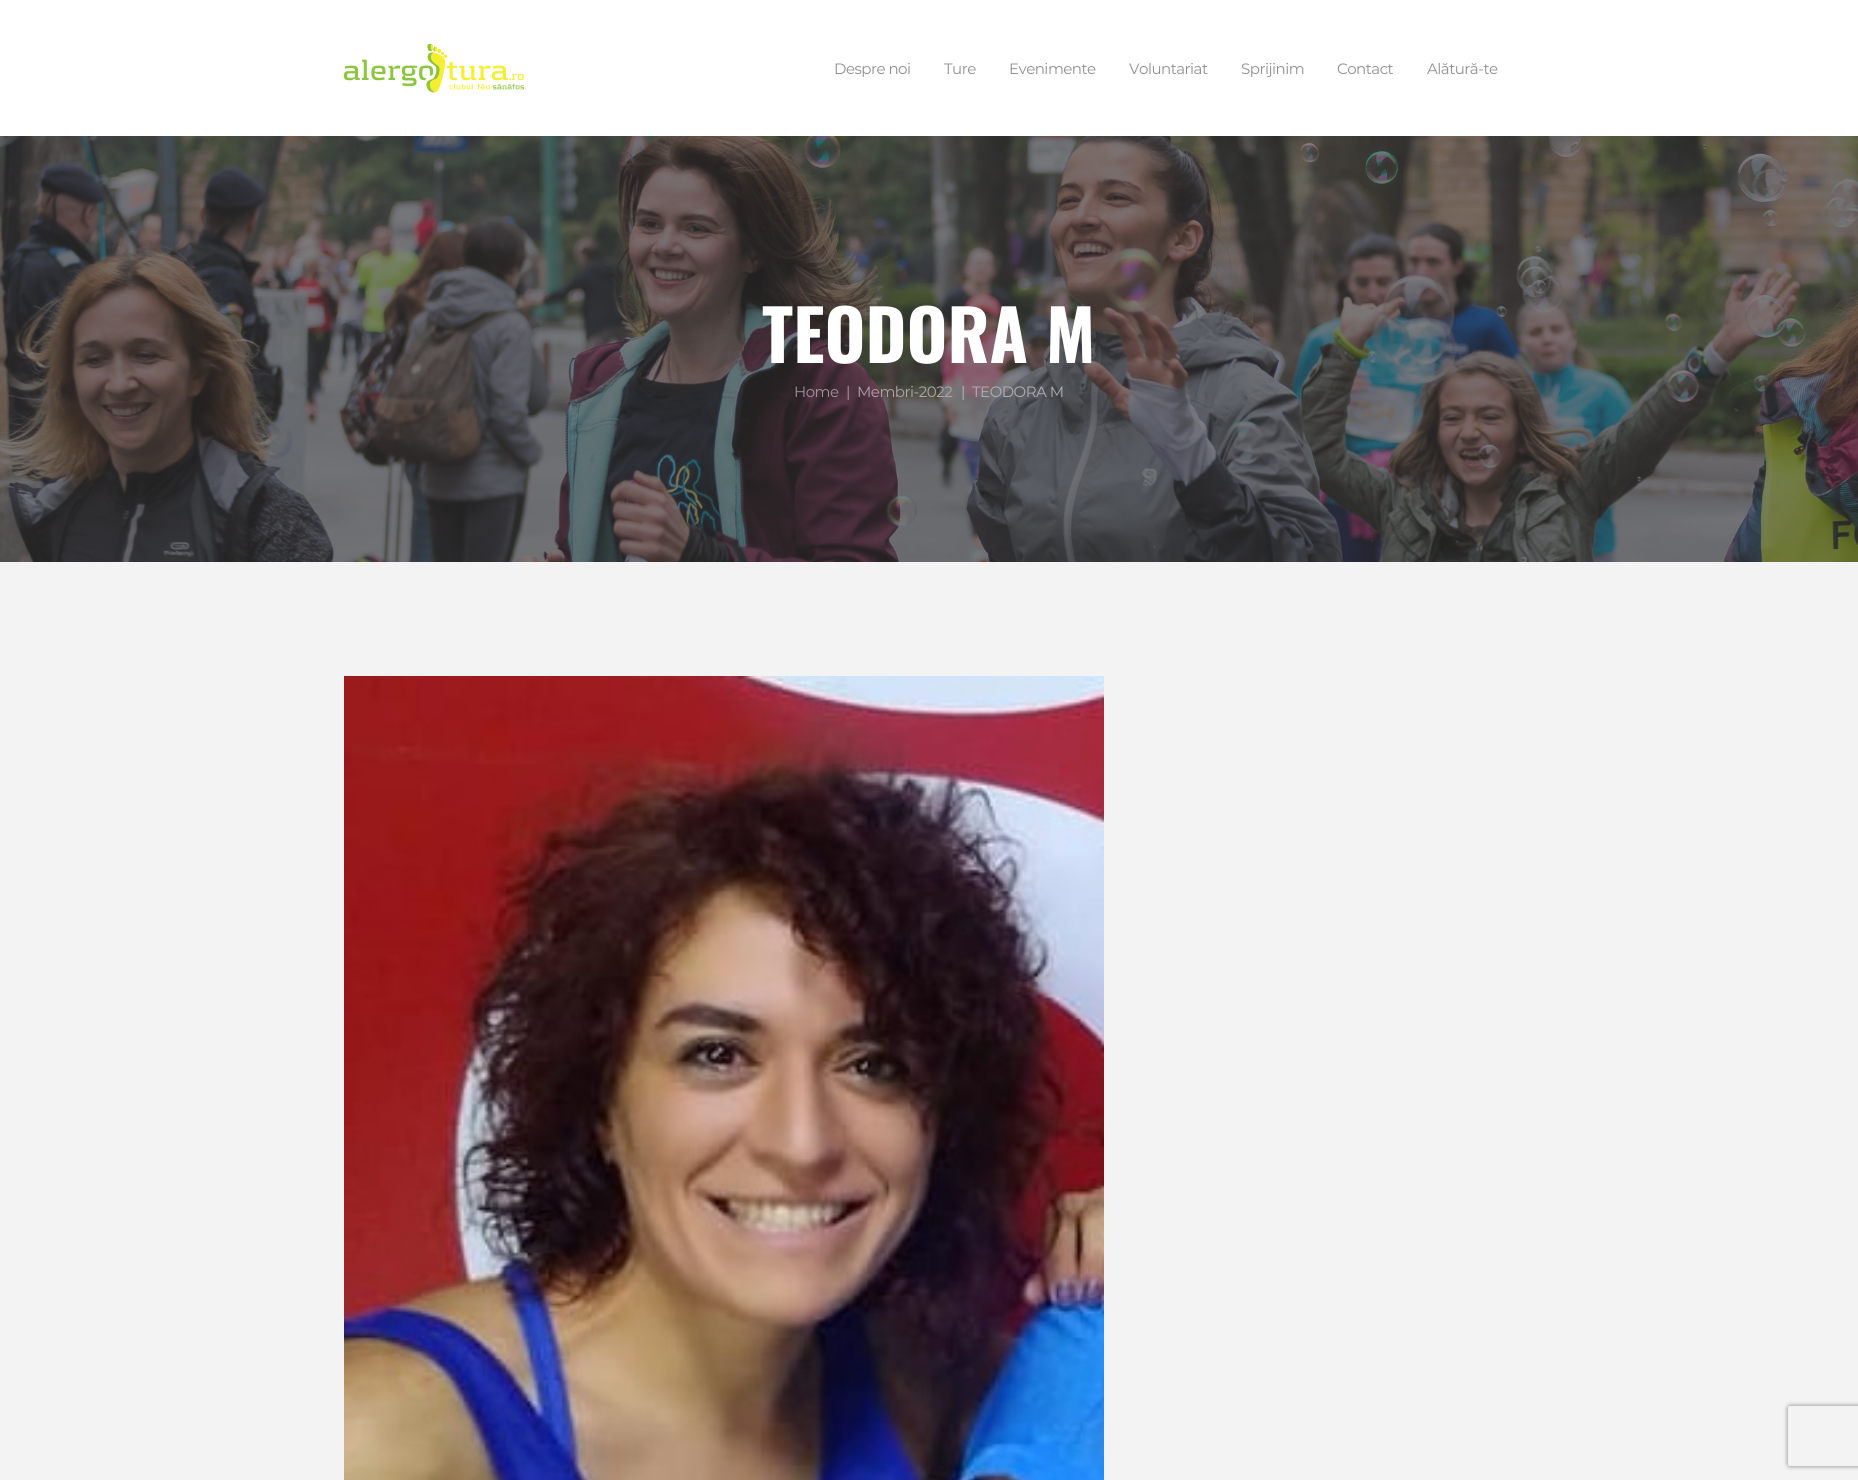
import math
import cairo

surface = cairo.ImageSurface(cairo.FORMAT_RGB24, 1858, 1480)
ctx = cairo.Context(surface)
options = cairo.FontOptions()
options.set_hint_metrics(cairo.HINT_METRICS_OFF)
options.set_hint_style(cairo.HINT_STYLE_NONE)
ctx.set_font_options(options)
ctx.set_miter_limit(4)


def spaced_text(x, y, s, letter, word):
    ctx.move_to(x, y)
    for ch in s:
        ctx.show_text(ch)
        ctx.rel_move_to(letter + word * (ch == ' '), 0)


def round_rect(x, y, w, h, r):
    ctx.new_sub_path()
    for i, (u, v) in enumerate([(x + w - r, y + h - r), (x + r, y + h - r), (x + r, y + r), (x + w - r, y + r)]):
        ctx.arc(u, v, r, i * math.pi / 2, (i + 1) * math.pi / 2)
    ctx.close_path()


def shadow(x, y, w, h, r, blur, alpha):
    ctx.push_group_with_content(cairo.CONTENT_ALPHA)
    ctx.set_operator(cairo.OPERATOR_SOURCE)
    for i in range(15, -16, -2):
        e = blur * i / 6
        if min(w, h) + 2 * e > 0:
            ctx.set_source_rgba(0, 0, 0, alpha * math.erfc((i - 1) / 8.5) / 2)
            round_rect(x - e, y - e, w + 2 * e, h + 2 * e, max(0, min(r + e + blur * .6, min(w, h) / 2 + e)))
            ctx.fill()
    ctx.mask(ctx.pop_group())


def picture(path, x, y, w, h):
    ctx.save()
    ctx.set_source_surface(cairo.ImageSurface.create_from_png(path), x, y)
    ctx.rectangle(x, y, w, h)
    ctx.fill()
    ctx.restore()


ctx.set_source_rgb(0.953, 0.953, 0.953)
ctx.paint()
ctx.set_source_rgb(1, 1, 1)
ctx.rectangle(0, 0, 1858, 136)
ctx.fill()
picture("img1.png", 344, 44, 180, 49)
ctx.select_font_face("Montserrat")
ctx.set_font_size(15)
ctx.set_source_rgb(0.565, 0.565, 0.565)
spaced_text(834, 74, "Despre noi", -0.5, 0)
spaced_text(944, 74, "Ture", -0.5, 0)
spaced_text(1009, 74, "Evenimente", -0.5, 0)
spaced_text(1129, 74, "Voluntariat", -0.5, 0)
spaced_text(1241, 74, "Sprijinim", -0.5, 0)
spaced_text(1337, 74, "Contact", -0.5, 0)
spaced_text(1427, 74, "Alătură-te", -0.5, 0)
picture("img2.png", 0, 136, 1858, 426)
ctx.select_font_face("Oswald", cairo.FONT_SLANT_NORMAL, cairo.FONT_WEIGHT_BOLD)
ctx.set_font_size(70)
ctx.set_source_rgb(1, 1, 1)
ctx.move_to(762, 363)
ctx.show_text("TEODORA M")
ctx.select_font_face("Montserrat")
ctx.set_font_size(15)
ctx.set_source_rgb(0.62, 0.58, 0.596)
spaced_text(794, 397, "Home", -0.5, 0)
ctx.set_source_rgb(0.663, 0.6, 0.631)
spaced_text(846, 397, "|", -0.5, 0)
ctx.set_source_rgb(0.671, 0.651, 0.647)
spaced_text(857, 397, "Membri-2022", -0.5, 0)
ctx.set_source_rgb(0.733, 0.718, 0.725)
spaced_text(961, 397, "|", -0.5, 0)
ctx.set_source_rgb(0.69, 0.686, 0.698)
spaced_text(972, 397, "TEODORA M", -0.5, 0)
picture("img3.png", 344, 676, 760, 804)
ctx.save()
ctx.set_fill_rule(cairo.FILL_RULE_EVEN_ODD)
ctx.new_path()
ctx.move_to(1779, 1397)
ctx.line_to(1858, 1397)
ctx.line_to(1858, 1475)
ctx.line_to(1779, 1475)
ctx.close_path()
ctx.move_to(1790, 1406)
ctx.line_to(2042, 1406)
ctx.curve_to(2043, 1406, 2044, 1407, 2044, 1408)
ctx.line_to(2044, 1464)
ctx.curve_to(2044, 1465, 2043, 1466, 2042, 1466)
ctx.line_to(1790, 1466)
ctx.curve_to(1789, 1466, 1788, 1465, 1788, 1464)
ctx.line_to(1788, 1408)
ctx.curve_to(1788, 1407, 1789, 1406, 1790, 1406)
ctx.close_path()
ctx.clip()
ctx.set_source_rgb(0.502, 0.502, 0.502)
shadow(1788, 1406, 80, 60, 2, 2.5, 1)
ctx.restore()
surface.write_to_png("page.png")
